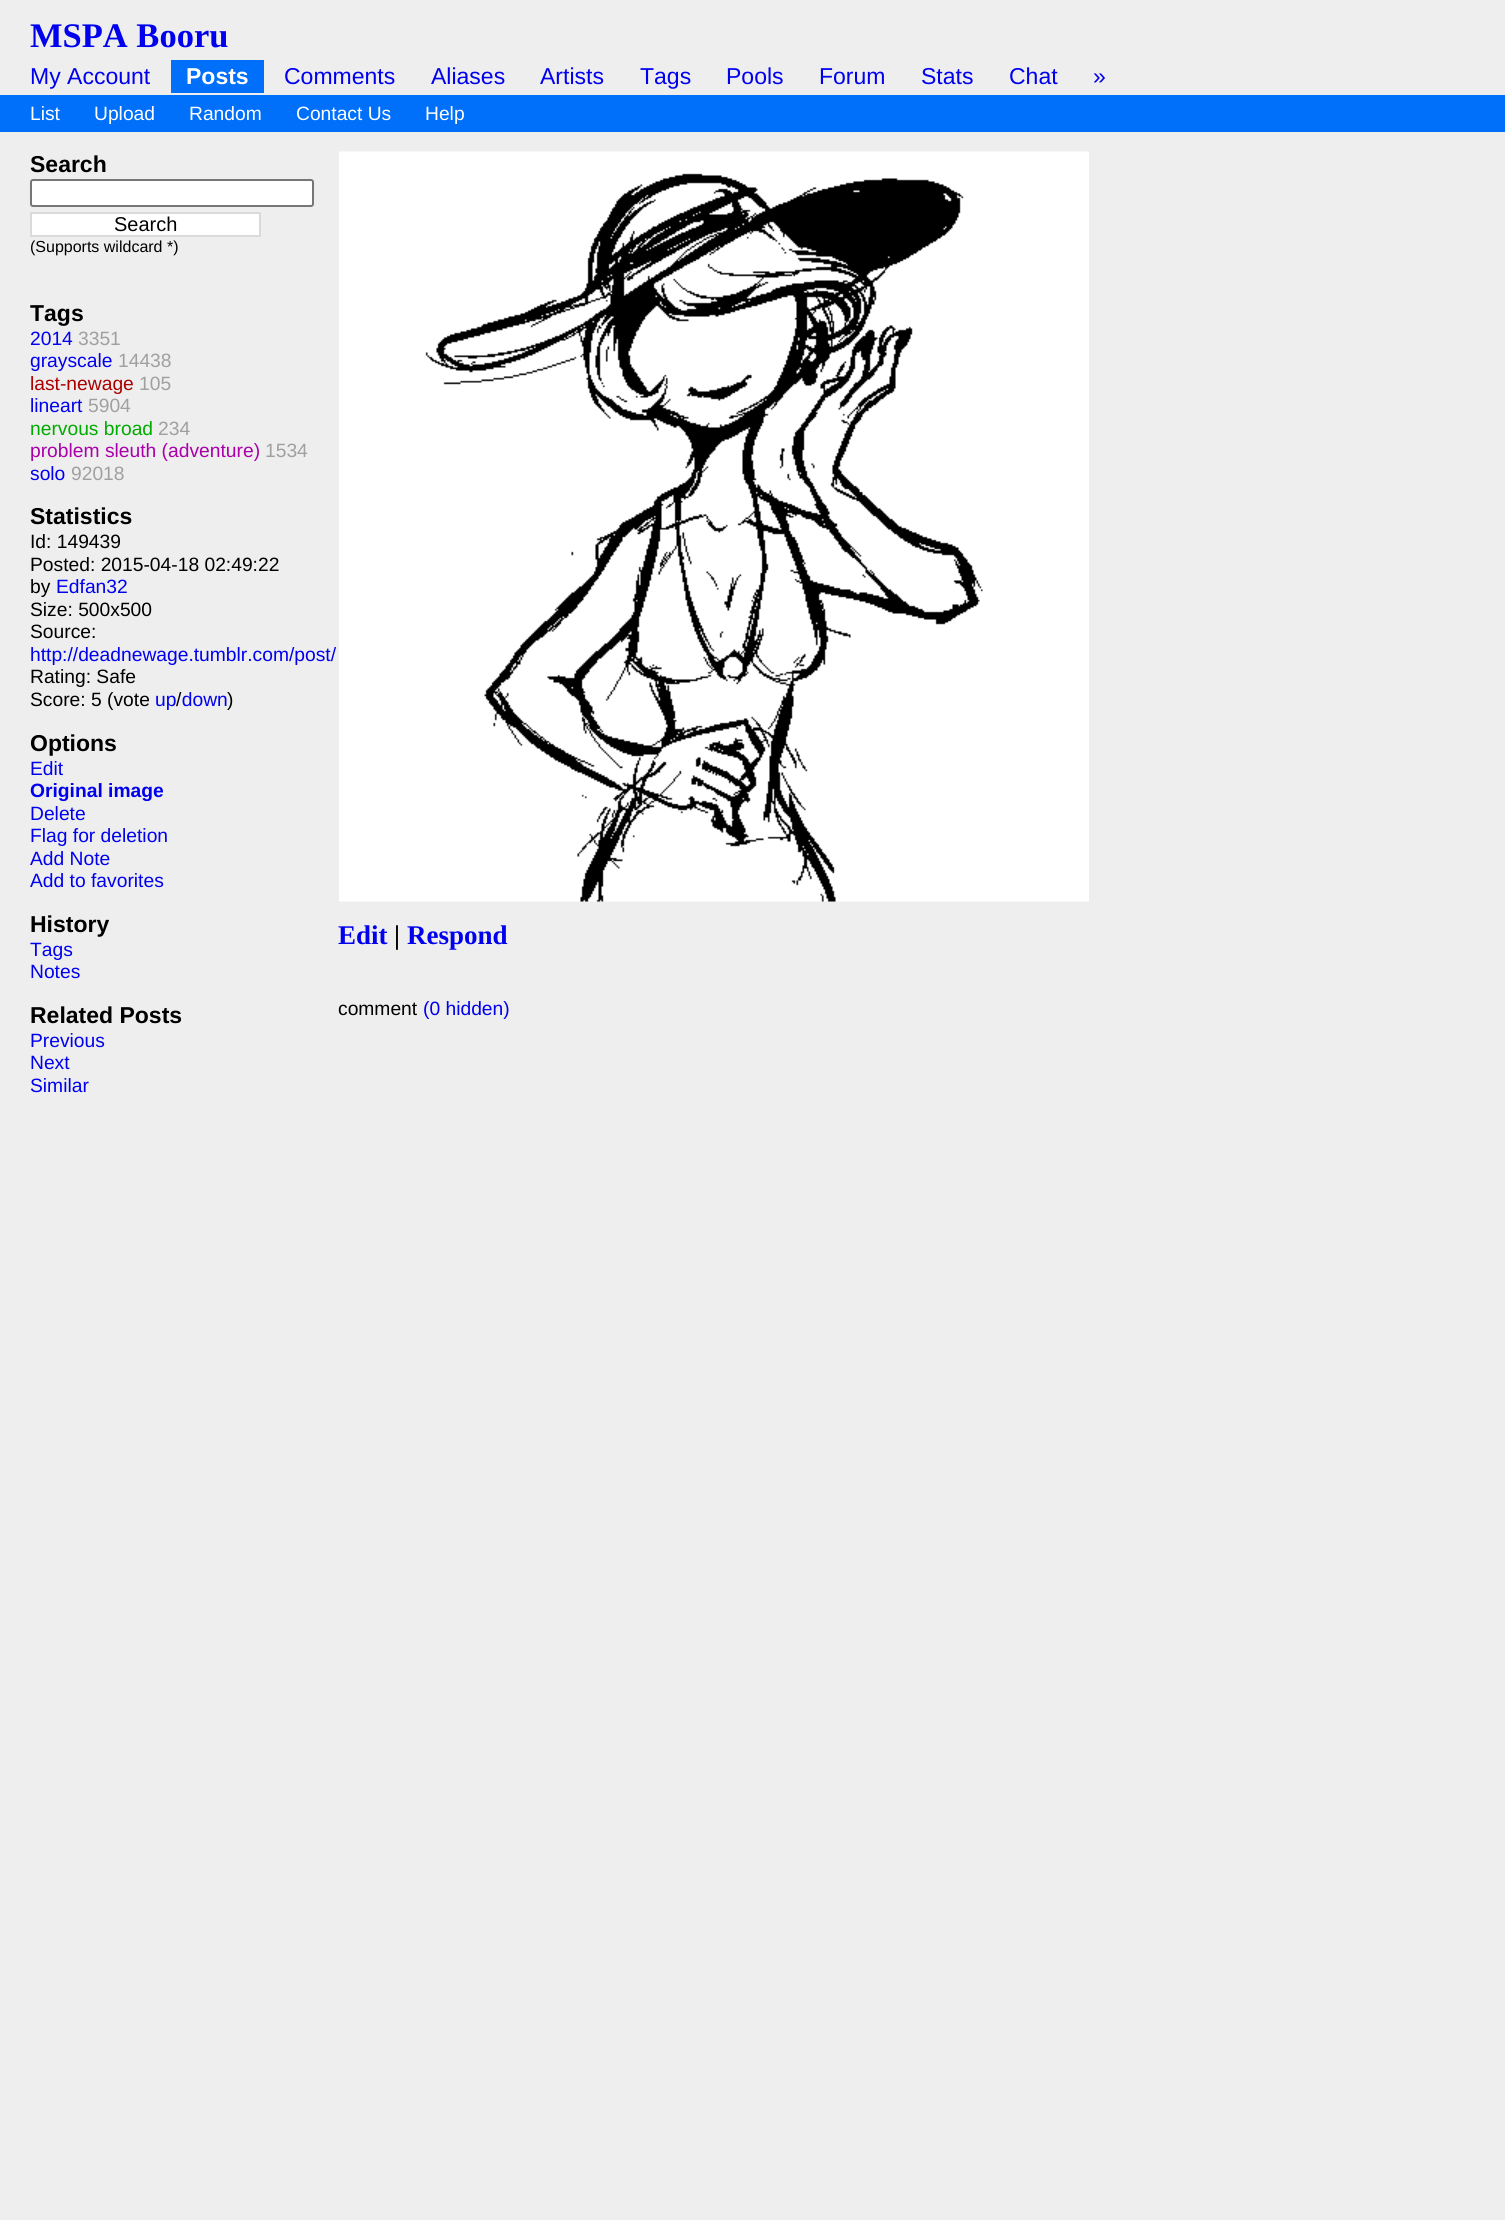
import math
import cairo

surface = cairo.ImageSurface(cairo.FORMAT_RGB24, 1505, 2220)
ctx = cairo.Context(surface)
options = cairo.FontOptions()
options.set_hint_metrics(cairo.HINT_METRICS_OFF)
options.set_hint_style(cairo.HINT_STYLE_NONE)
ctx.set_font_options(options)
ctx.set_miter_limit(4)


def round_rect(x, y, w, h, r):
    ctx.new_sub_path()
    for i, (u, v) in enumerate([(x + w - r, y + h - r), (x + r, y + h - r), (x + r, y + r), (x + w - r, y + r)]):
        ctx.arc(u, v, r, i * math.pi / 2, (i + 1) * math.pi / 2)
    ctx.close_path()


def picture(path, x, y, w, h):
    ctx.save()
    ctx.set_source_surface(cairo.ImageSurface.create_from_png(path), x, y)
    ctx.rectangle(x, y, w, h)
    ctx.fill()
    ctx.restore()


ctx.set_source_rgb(0.933, 0.933, 0.933)
ctx.paint()
ctx.select_font_face("Liberation Serif", cairo.FONT_SLANT_NORMAL, cairo.FONT_WEIGHT_BOLD)
ctx.set_font_size(34.5)
ctx.set_source_rgb(0, 0, 0.933)
ctx.move_to(30, 47)
ctx.show_text("MSPA Booru")
ctx.select_font_face("Liberation Sans")
ctx.set_font_size(23)
ctx.move_to(30, 84)
ctx.show_text("My Account")
ctx.set_source_rgb(0, 0.435, 0.98)
ctx.rectangle(171, 60, 93, 33)
ctx.fill()
ctx.select_font_face("Liberation Sans", cairo.FONT_SLANT_NORMAL, cairo.FONT_WEIGHT_BOLD)
ctx.set_source_rgb(1, 1, 1)
ctx.move_to(186, 84)
ctx.show_text("Posts")
ctx.select_font_face("Liberation Sans")
ctx.set_source_rgb(0, 0, 0.933)
ctx.move_to(284, 84)
ctx.show_text("Comments")
ctx.move_to(431, 84)
ctx.show_text("Aliases")
ctx.move_to(540, 84)
ctx.show_text("Artists")
ctx.move_to(640, 84)
ctx.show_text("Tags")
ctx.move_to(726, 84)
ctx.show_text("Pools")
ctx.move_to(819, 84)
ctx.show_text("Forum")
ctx.move_to(921, 84)
ctx.show_text("Stats")
ctx.move_to(1009, 84)
ctx.show_text("Chat")
ctx.move_to(1093, 84)
ctx.show_text("»")
ctx.set_source_rgb(0, 0.435, 0.98)
ctx.rectangle(0, 95, 1505, 37)
ctx.fill()
ctx.set_font_size(19.25)
ctx.set_source_rgb(1, 1, 1)
ctx.move_to(30, 120)
ctx.show_text("List")
ctx.move_to(94, 120)
ctx.show_text("Upload")
ctx.move_to(189, 120)
ctx.show_text("Random")
ctx.move_to(296, 120)
ctx.show_text("Contact Us")
ctx.move_to(425, 120)
ctx.show_text("Help")
ctx.select_font_face("Liberation Sans", cairo.FONT_SLANT_NORMAL, cairo.FONT_WEIGHT_BOLD)
ctx.set_font_size(23)
ctx.set_source_rgb(0, 0, 0)
ctx.move_to(30, 172)
ctx.show_text("Search")
ctx.set_source_rgb(1, 1, 1)
round_rect(31, 180, 282, 26, 2)
ctx.fill_preserve()
ctx.set_source_rgb(0.463, 0.463, 0.463)
ctx.stroke()
ctx.set_source_rgb(1, 1, 1)
ctx.rectangle(31, 213, 229, 23)
ctx.fill_preserve()
ctx.set_source_rgb(0.855, 0.855, 0.855)
ctx.stroke()
ctx.select_font_face("Liberation Sans")
ctx.set_font_size(20)
ctx.set_source_rgb(0, 0, 0)
ctx.move_to(114, 231)
ctx.show_text("Search")
ctx.set_font_size(16)
ctx.move_to(30, 252)
ctx.show_text("(Supports wildcard *)")
ctx.select_font_face("Liberation Sans", cairo.FONT_SLANT_NORMAL, cairo.FONT_WEIGHT_BOLD)
ctx.set_font_size(23)
ctx.move_to(30, 321)
ctx.show_text("Tags")
ctx.select_font_face("Liberation Sans")
ctx.set_font_size(19.25)
ctx.set_source_rgb(0, 0, 0.933)
ctx.move_to(30, 345)
ctx.show_text("2014")
ctx.set_source_rgb(0.627, 0.627, 0.627)
ctx.move_to(78, 345)
ctx.show_text("3351")
ctx.set_source_rgb(0, 0, 0.933)
ctx.move_to(30, 367)
ctx.show_text("grayscale")
ctx.set_source_rgb(0.627, 0.627, 0.627)
ctx.move_to(118, 367)
ctx.show_text("14438")
ctx.set_source_rgb(0.667, 0, 0)
ctx.move_to(30, 390)
ctx.show_text("last-newage")
ctx.set_source_rgb(0.627, 0.627, 0.627)
ctx.move_to(139, 390)
ctx.show_text("105")
ctx.set_source_rgb(0, 0, 0.933)
ctx.move_to(30, 412)
ctx.show_text("lineart")
ctx.set_source_rgb(0.627, 0.627, 0.627)
ctx.move_to(88, 412)
ctx.show_text("5904")
ctx.set_source_rgb(0, 0.667, 0)
ctx.move_to(30, 435)
ctx.show_text("nervous broad")
ctx.set_source_rgb(0.627, 0.627, 0.627)
ctx.move_to(158, 435)
ctx.show_text("234")
ctx.set_source_rgb(0.667, 0, 0.667)
ctx.move_to(30, 457)
ctx.show_text("problem sleuth (adventure)")
ctx.set_source_rgb(0.627, 0.627, 0.627)
ctx.move_to(265, 457)
ctx.show_text("1534")
ctx.set_source_rgb(0, 0, 0.933)
ctx.move_to(30, 480)
ctx.show_text("solo")
ctx.set_source_rgb(0.627, 0.627, 0.627)
ctx.move_to(71, 480)
ctx.show_text("92018")
ctx.select_font_face("Liberation Sans", cairo.FONT_SLANT_NORMAL, cairo.FONT_WEIGHT_BOLD)
ctx.set_font_size(23)
ctx.set_source_rgb(0, 0, 0)
ctx.move_to(30, 524)
ctx.show_text("Statistics")
ctx.select_font_face("Liberation Sans")
ctx.set_font_size(19.25)
ctx.move_to(30, 548)
ctx.show_text("Id: 149439")
ctx.move_to(30, 571)
ctx.show_text("Posted: 2015-04-18 02:49:22")
ctx.move_to(30, 593)
ctx.show_text("by")
ctx.set_source_rgb(0, 0, 0.933)
ctx.move_to(56, 593)
ctx.show_text("Edfan32")
ctx.set_source_rgb(0, 0, 0)
ctx.move_to(30, 616)
ctx.show_text("Size: 500x500")
ctx.move_to(30, 638)
ctx.show_text("Source:")
ctx.set_source_rgb(0, 0, 0.933)
ctx.move_to(30, 661)
ctx.show_text("http://deadnewage.tumblr.com/post/")
ctx.set_source_rgb(0, 0, 0)
ctx.move_to(30, 683)
ctx.show_text("Rating: Safe")
ctx.move_to(30, 706)
ctx.show_text("Score: 5 (vote")
ctx.set_source_rgb(0, 0, 0.933)
ctx.move_to(155, 706)
ctx.show_text("up down")
ctx.set_source_rgb(0, 0, 0)
ctx.move_to(176, 706)
ctx.show_text("/")
ctx.move_to(227, 706)
ctx.show_text(")")
ctx.select_font_face("Liberation Sans", cairo.FONT_SLANT_NORMAL, cairo.FONT_WEIGHT_BOLD)
ctx.set_font_size(23)
ctx.move_to(30, 751)
ctx.show_text("Options")
ctx.select_font_face("Liberation Sans")
ctx.set_font_size(19.25)
ctx.set_source_rgb(0, 0, 0.933)
ctx.move_to(30, 775)
ctx.show_text("Edit")
ctx.select_font_face("Liberation Sans", cairo.FONT_SLANT_NORMAL, cairo.FONT_WEIGHT_BOLD)
ctx.move_to(30, 797)
ctx.show_text("Original image")
ctx.select_font_face("Liberation Sans")
ctx.move_to(30, 820)
ctx.show_text("Delete")
ctx.move_to(30, 842)
ctx.show_text("Flag for deletion")
ctx.move_to(30, 865)
ctx.show_text("Add Note")
ctx.move_to(30, 887)
ctx.show_text("Add to favorites")
ctx.select_font_face("Liberation Sans", cairo.FONT_SLANT_NORMAL, cairo.FONT_WEIGHT_BOLD)
ctx.set_font_size(23)
ctx.set_source_rgb(0, 0, 0)
ctx.move_to(30, 932)
ctx.show_text("History")
ctx.select_font_face("Liberation Sans")
ctx.set_font_size(19.25)
ctx.set_source_rgb(0, 0, 0.933)
ctx.move_to(30, 956)
ctx.show_text("Tags")
ctx.move_to(30, 978)
ctx.show_text("Notes")
ctx.select_font_face("Liberation Sans", cairo.FONT_SLANT_NORMAL, cairo.FONT_WEIGHT_BOLD)
ctx.set_font_size(23)
ctx.set_source_rgb(0, 0, 0)
ctx.move_to(30, 1023)
ctx.show_text("Related Posts")
ctx.select_font_face("Liberation Sans")
ctx.set_font_size(19.25)
ctx.set_source_rgb(0, 0, 0.933)
ctx.move_to(30, 1047)
ctx.show_text("Previous")
ctx.move_to(30, 1069)
ctx.show_text("Next")
ctx.move_to(30, 1092)
ctx.show_text("Similar")
picture("img1.png", 339, 151, 750, 751)
ctx.select_font_face("Liberation Serif", cairo.FONT_SLANT_NORMAL, cairo.FONT_WEIGHT_BOLD)
ctx.set_font_size(27)
ctx.move_to(338, 944)
ctx.show_text("Edit")
ctx.set_source_rgb(0, 0, 0)
ctx.move_to(394, 944)
ctx.show_text("|")
ctx.set_source_rgb(0, 0, 0.933)
ctx.move_to(407, 944)
ctx.show_text("Respond")
ctx.select_font_face("Liberation Sans")
ctx.set_font_size(19.25)
ctx.set_source_rgb(0, 0, 0)
ctx.move_to(338, 1015)
ctx.show_text("comment")
ctx.set_source_rgb(0, 0, 0.933)
ctx.move_to(423, 1015)
ctx.show_text("(0 hidden)")
surface.write_to_png("page.png")
